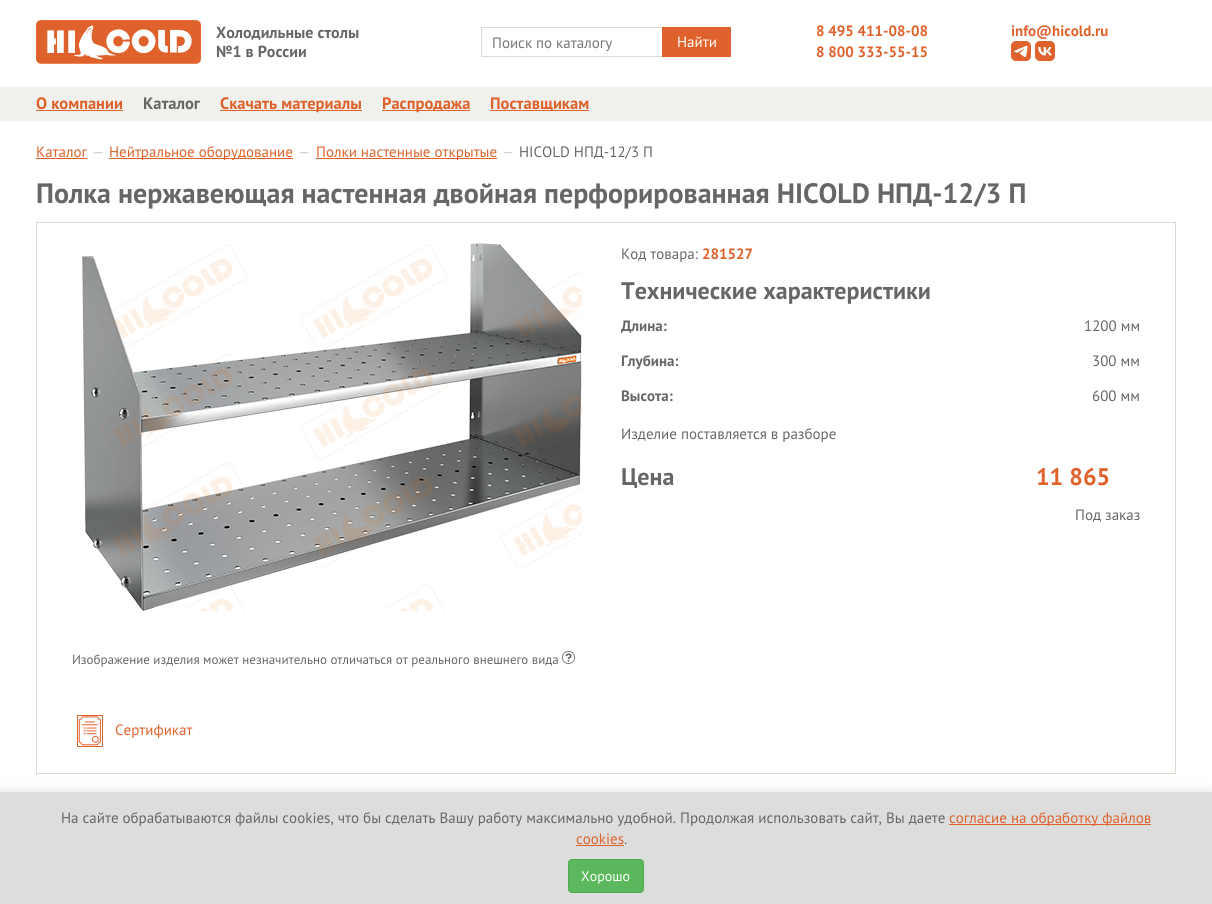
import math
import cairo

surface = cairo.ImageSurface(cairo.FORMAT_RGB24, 1212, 904)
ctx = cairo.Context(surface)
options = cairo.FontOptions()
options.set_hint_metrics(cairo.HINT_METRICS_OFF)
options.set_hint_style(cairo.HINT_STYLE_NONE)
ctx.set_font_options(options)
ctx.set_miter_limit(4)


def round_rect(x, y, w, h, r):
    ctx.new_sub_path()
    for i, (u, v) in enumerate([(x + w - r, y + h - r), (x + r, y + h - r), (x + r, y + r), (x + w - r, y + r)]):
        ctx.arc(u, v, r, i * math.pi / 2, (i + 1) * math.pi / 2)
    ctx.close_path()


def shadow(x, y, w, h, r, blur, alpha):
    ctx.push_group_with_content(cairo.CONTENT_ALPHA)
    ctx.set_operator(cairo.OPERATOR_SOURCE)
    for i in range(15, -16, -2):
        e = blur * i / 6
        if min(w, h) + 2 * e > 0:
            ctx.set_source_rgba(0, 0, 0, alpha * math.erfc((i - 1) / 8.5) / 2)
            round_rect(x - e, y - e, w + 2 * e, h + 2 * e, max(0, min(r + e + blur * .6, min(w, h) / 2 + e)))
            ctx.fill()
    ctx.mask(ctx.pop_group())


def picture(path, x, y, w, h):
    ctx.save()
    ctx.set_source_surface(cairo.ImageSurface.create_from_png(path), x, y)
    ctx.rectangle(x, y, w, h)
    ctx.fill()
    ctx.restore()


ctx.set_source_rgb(1, 1, 1)
ctx.paint()
picture("img1.png", 36, 20, 165, 44)
ctx.select_font_face("PT Sans", cairo.FONT_SLANT_NORMAL, cairo.FONT_WEIGHT_BOLD)
ctx.set_font_size(16)
ctx.set_source_rgb(0.4, 0.4, 0.4)
ctx.move_to(216, 38)
ctx.show_text("Холодильные столы")
ctx.move_to(216, 57)
ctx.show_text("№1 в России")
ctx.rectangle(481.5, 27.5, 185, 29)
ctx.set_source_rgb(0.855, 0.855, 0.812)
ctx.set_line_width(1)
ctx.stroke()
ctx.select_font_face("PT Sans")
ctx.set_font_size(15)
ctx.set_source_rgb(0.459, 0.459, 0.459)
ctx.move_to(492, 48)
ctx.show_text("Поиск по каталогу")
ctx.set_source_rgb(0.875, 0.38, 0.169)
ctx.rectangle(662, 27, 69, 30)
ctx.fill()
ctx.set_source_rgb(1, 1, 1)
ctx.move_to(677, 47)
ctx.show_text("Найти")
ctx.select_font_face("PT Sans", cairo.FONT_SLANT_NORMAL, cairo.FONT_WEIGHT_BOLD)
ctx.set_source_rgb(0.875, 0.38, 0.169)
ctx.move_to(816, 36)
ctx.show_text("8 495 411-08-08")
ctx.move_to(816, 57)
ctx.show_text("8 800 333-55-15")
ctx.move_to(1011, 36)
ctx.show_text("info@hicold.ru")
picture("img2.png", 1011, 41, 20, 20)
picture("img3.png", 1035, 41, 20, 20)
ctx.set_source_rgb(0.941, 0.941, 0.925)
ctx.rectangle(0, 87, 1212, 34)
ctx.fill()
ctx.set_font_size(16.5)
ctx.set_source_rgb(0.875, 0.38, 0.169)
ctx.move_to(36, 109)
ctx.show_text("О компании")
ctx.rectangle(36, 110, 87, 1)
ctx.fill()
ctx.set_source_rgb(0.4, 0.4, 0.4)
ctx.move_to(143, 109)
ctx.show_text("Каталог")
ctx.set_source_rgb(0.875, 0.38, 0.169)
ctx.rectangle(220, 110, 142, 1)
ctx.fill()
ctx.move_to(220, 109)
ctx.show_text("Скачать материалы")
ctx.rectangle(382, 110, 88, 1)
ctx.fill()
ctx.move_to(382, 109)
ctx.show_text("Распродажа")
ctx.rectangle(490, 110, 99, 1)
ctx.fill()
ctx.move_to(490, 109)
ctx.show_text("Поставщикам")
ctx.select_font_face("PT Sans")
ctx.set_font_size(15)
ctx.move_to(36, 157)
ctx.show_text("Каталог")
ctx.rectangle(36, 158, 51, 1)
ctx.fill()
ctx.set_source_rgb(0.8, 0.8, 0.8)
ctx.move_to(92, 157)
ctx.show_text("—")
ctx.set_source_rgb(0.875, 0.38, 0.169)
ctx.rectangle(109, 158, 184, 1)
ctx.fill()
ctx.move_to(109, 157)
ctx.show_text("Нейтральное оборудование")
ctx.set_source_rgb(0.8, 0.8, 0.8)
ctx.move_to(298, 157)
ctx.show_text("—")
ctx.set_source_rgb(0.875, 0.38, 0.169)
ctx.rectangle(316, 158, 181, 1)
ctx.fill()
ctx.move_to(316, 157)
ctx.show_text("Полки настенные открытые")
ctx.set_source_rgb(0.8, 0.8, 0.8)
ctx.move_to(502, 157)
ctx.show_text("—")
ctx.set_source_rgb(0.4, 0.4, 0.4)
ctx.move_to(519, 157)
ctx.show_text("HICOLD НПД-12/3 П")
ctx.select_font_face("PT Sans", cairo.FONT_SLANT_NORMAL, cairo.FONT_WEIGHT_BOLD)
ctx.set_font_size(28)
ctx.move_to(36, 203)
ctx.show_text("Полка нержавеющая настенная двойная перфорированная HICOLD НПД-12/3 П")
ctx.rectangle(36.5, 222.5, 1139, 551)
ctx.set_source_rgb(0.855, 0.855, 0.812)
ctx.stroke()
ctx.select_font_face("PT Sans")
ctx.set_font_size(15)
ctx.set_source_rgb(0.4, 0.4, 0.4)
ctx.move_to(621, 259)
ctx.show_text("Код товара:")
ctx.select_font_face("PT Sans", cairo.FONT_SLANT_NORMAL, cairo.FONT_WEIGHT_BOLD)
ctx.set_source_rgb(0.875, 0.38, 0.169)
ctx.move_to(702, 259)
ctx.show_text("281527")
ctx.set_font_size(24)
ctx.set_source_rgb(0.4, 0.4, 0.4)
ctx.move_to(621, 299)
ctx.show_text("Технические характеристики")
ctx.set_font_size(15)
ctx.move_to(621, 331)
ctx.show_text("Длина:")
ctx.select_font_face("PT Sans")
ctx.move_to(1084, 331)
ctx.show_text("1200 мм")
ctx.select_font_face("PT Sans", cairo.FONT_SLANT_NORMAL, cairo.FONT_WEIGHT_BOLD)
ctx.move_to(621, 366)
ctx.show_text("Глубина:")
ctx.select_font_face("PT Sans")
ctx.move_to(1092, 366)
ctx.show_text("300 мм")
ctx.select_font_face("PT Sans", cairo.FONT_SLANT_NORMAL, cairo.FONT_WEIGHT_BOLD)
ctx.move_to(621, 401)
ctx.show_text("Высота:")
ctx.select_font_face("PT Sans")
ctx.move_to(1092, 401)
ctx.show_text("600 мм")
ctx.move_to(621, 439)
ctx.show_text("Изделие поставляется в разборе")
ctx.select_font_face("PT Sans", cairo.FONT_SLANT_NORMAL, cairo.FONT_WEIGHT_BOLD)
ctx.set_font_size(24)
ctx.move_to(621, 485)
ctx.show_text("Цена")
ctx.set_source_rgb(0.875, 0.38, 0.169)
ctx.move_to(1036, 485)
ctx.show_text("11 865")
ctx.select_font_face("PT Sans")
ctx.set_font_size(15)
ctx.set_source_rgb(0.4, 0.4, 0.4)
ctx.move_to(1075, 520)
ctx.show_text("Под заказ")
picture("img4.png", 82, 243, 500, 368)
ctx.set_font_size(13)
ctx.move_to(72, 664)
ctx.show_text("Изображение изделия может незначительно отличаться от реального внешнего вида")
picture("img5.png", 562, 651, 13, 13)
picture("img6.png", 77, 715, 26, 32)
ctx.set_font_size(15)
ctx.set_source_rgb(0.875, 0.38, 0.169)
ctx.move_to(115, 735)
ctx.show_text("Сертификат")
ctx.set_source_rgb(0, 0, 0)
shadow(0, 790, 1212, 112, 0, 5, 0.1)
ctx.set_source_rgb(0.867, 0.867, 0.867)
ctx.rectangle(0, 792, 1212, 112)
ctx.fill()
ctx.set_source_rgb(0.4, 0.4, 0.4)
ctx.move_to(61, 823)
ctx.show_text("На сайте обрабатываются файлы cookies, что бы сделать Вашу работу максимально удобной. Продолжая использовать сайт, Вы даете")
ctx.set_source_rgb(0.875, 0.38, 0.169)
ctx.rectangle(949, 824, 202, 1)
ctx.fill()
ctx.move_to(949, 823)
ctx.show_text("согласие на обработку файлов")
ctx.move_to(576, 844)
ctx.show_text("cookies")
ctx.rectangle(576, 845, 48, 1)
ctx.fill()
ctx.set_source_rgb(0.4, 0.4, 0.4)
ctx.move_to(624, 844)
ctx.show_text(".")
ctx.set_source_rgb(0.361, 0.722, 0.361)
round_rect(568.5, 859.5, 75, 33, 3.5)
ctx.fill_preserve()
ctx.set_source_rgb(0.298, 0.682, 0.298)
ctx.stroke()
ctx.set_font_size(14)
ctx.set_source_rgb(1, 1, 1)
ctx.move_to(581, 881)
ctx.show_text("Хорошо")
surface.write_to_png("page.png")
